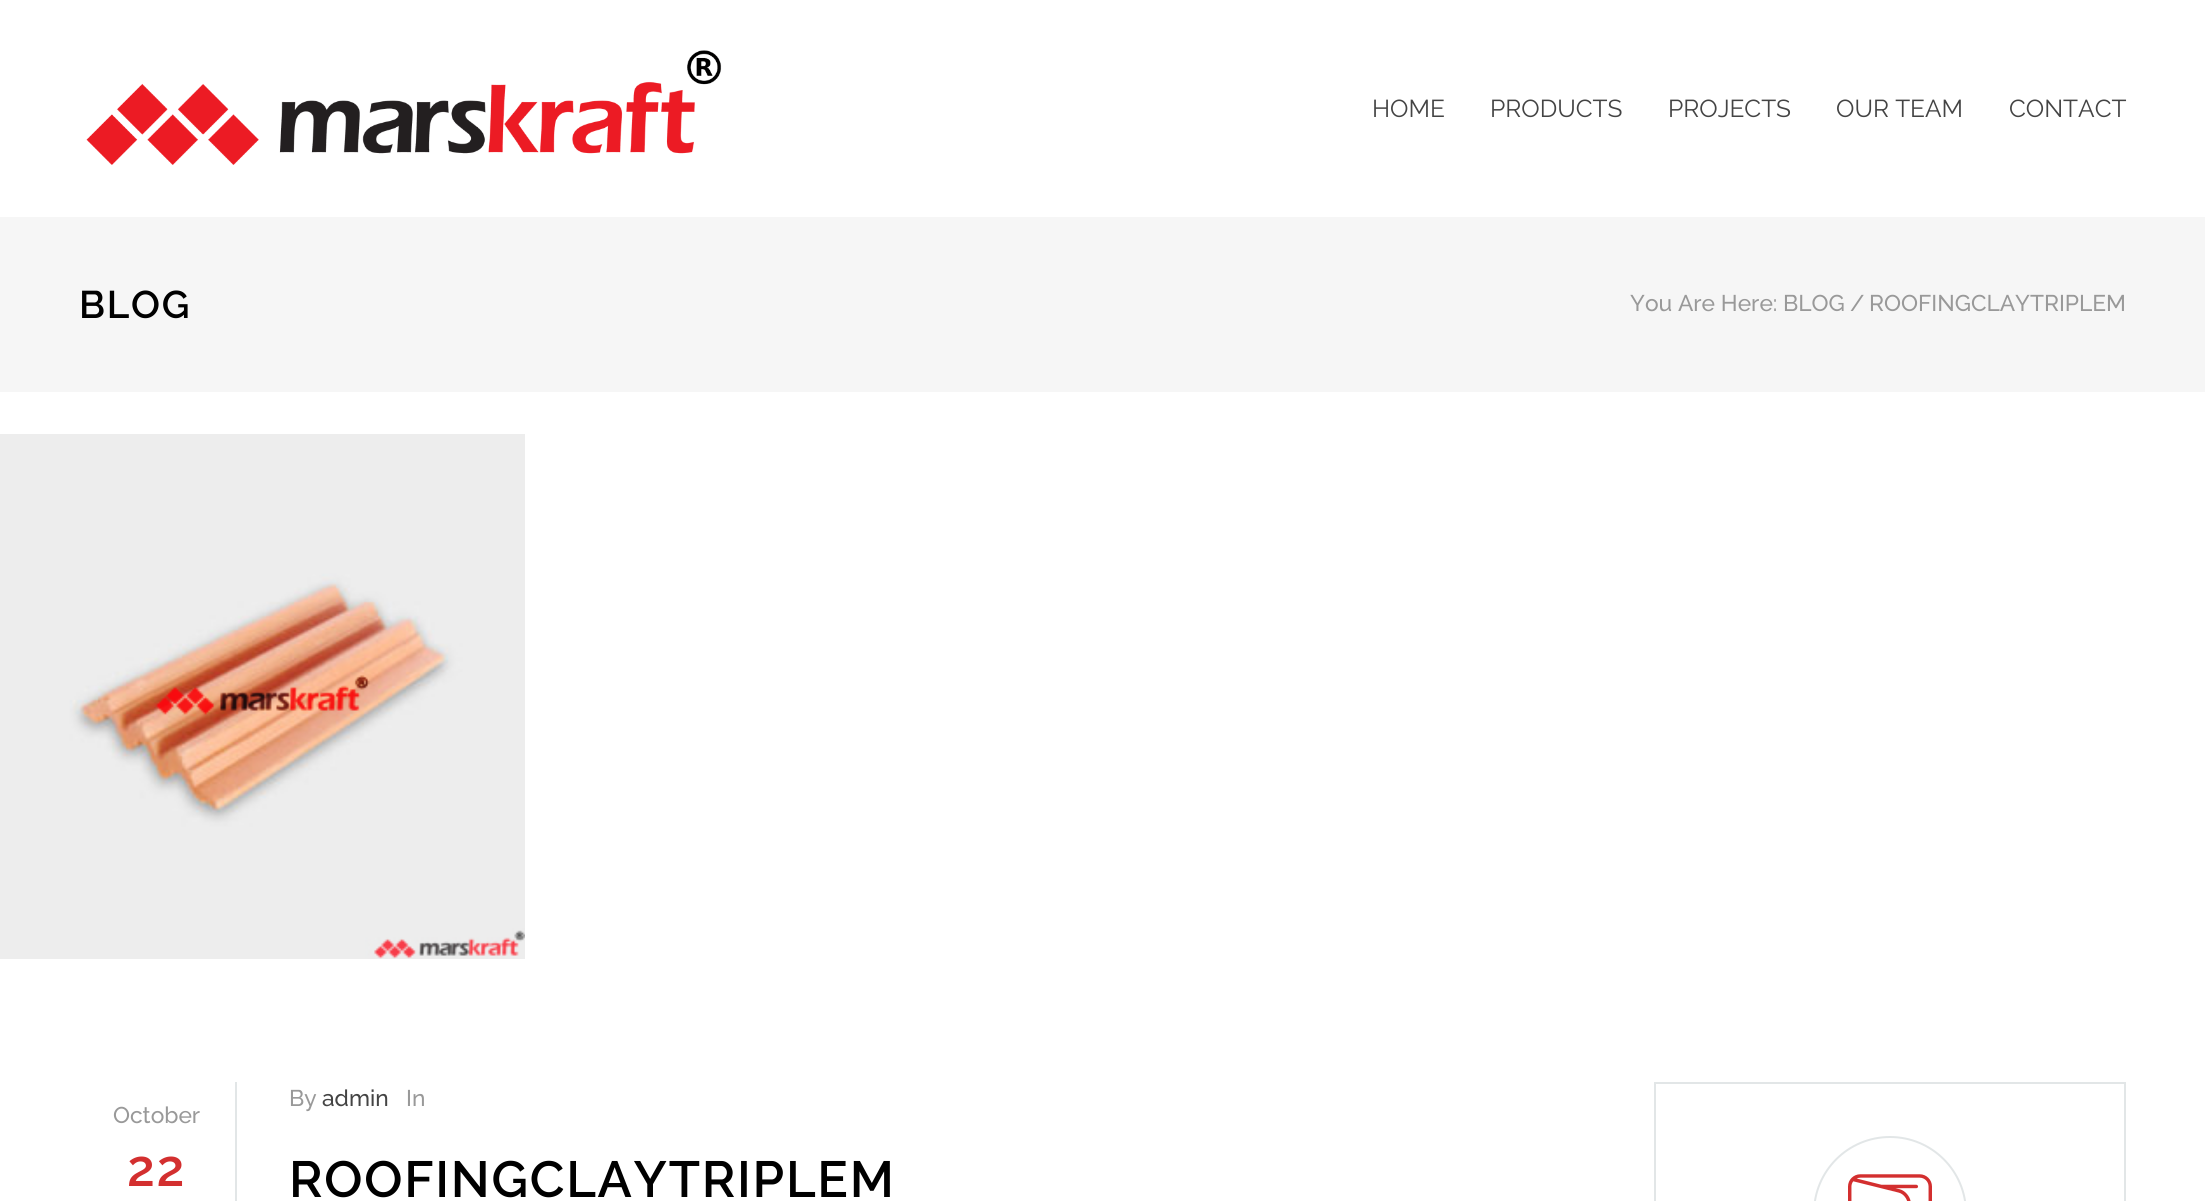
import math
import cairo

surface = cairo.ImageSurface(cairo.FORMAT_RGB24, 2205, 1201)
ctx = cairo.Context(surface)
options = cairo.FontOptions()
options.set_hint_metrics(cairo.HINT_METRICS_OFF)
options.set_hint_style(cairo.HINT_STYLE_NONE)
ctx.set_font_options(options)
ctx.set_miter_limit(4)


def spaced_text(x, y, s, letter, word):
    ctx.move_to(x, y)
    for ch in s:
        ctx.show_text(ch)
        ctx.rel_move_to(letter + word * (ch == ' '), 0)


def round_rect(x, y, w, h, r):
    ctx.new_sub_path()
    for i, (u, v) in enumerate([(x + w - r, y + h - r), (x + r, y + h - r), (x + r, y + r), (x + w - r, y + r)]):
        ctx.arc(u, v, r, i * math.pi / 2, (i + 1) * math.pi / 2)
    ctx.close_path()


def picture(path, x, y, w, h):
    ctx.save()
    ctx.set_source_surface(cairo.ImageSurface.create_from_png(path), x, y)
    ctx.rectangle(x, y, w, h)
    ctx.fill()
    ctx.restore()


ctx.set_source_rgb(1, 1, 1)
ctx.paint()
picture("img1.png", 86, 50, 636, 115)
ctx.select_font_face("Raleway")
ctx.set_font_size(24.5)
ctx.set_source_rgb(0.267, 0.267, 0.267)
ctx.move_to(1372, 117)
ctx.show_text("HOME")
ctx.move_to(1490, 117)
ctx.show_text("PRODUCTS")
ctx.move_to(1668, 117)
ctx.show_text("PROJECTS")
ctx.move_to(1836, 117)
ctx.show_text("OUR TEAM")
ctx.move_to(2009, 117)
ctx.show_text("CONTACT")
ctx.set_source_rgb(0.961, 0.961, 0.961)
ctx.rectangle(0, 217, 2205, 175)
ctx.fill()
ctx.select_font_face("Raleway SemiBold")
ctx.set_font_size(38.5)
ctx.set_source_rgb(0, 0, 0)
spaced_text(79, 318, "BLOG", 1.75, 0)
ctx.select_font_face("Raleway Medium")
ctx.set_font_size(22.75)
ctx.set_source_rgb(0.6, 0.6, 0.6)
ctx.move_to(1630, 311)
ctx.show_text("You Are Here:")
ctx.move_to(1783, 311)
ctx.show_text("BLOG")
ctx.move_to(1850, 311)
ctx.show_text("/")
ctx.move_to(1869, 311)
ctx.show_text("ROOFINGCLAYTRIPLEM")
picture("img2.png", 0, 434, 525, 525)
ctx.set_source_rgb(0.886, 0.902, 0.906)
ctx.rectangle(235, 1082, 2, 119)
ctx.fill()
ctx.set_source_rgb(0.6, 0.6, 0.6)
ctx.move_to(113, 1123)
ctx.show_text("October")
ctx.select_font_face("Raleway SemiBold")
ctx.set_font_size(50.75)
ctx.set_source_rgb(0.827, 0.184, 0.184)
spaced_text(127, 1186, "22", 1.75, 0)
ctx.select_font_face("Raleway Medium")
ctx.set_font_size(22.75)
ctx.set_source_rgb(0.6, 0.6, 0.6)
ctx.move_to(289, 1106)
ctx.show_text("By")
ctx.set_source_rgb(0.267, 0.267, 0.267)
ctx.move_to(322, 1106)
ctx.show_text("admin")
ctx.set_source_rgb(0.6, 0.6, 0.6)
ctx.move_to(406, 1106)
ctx.show_text("In")
ctx.select_font_face("Raleway SemiBold")
ctx.set_font_size(50.75)
ctx.set_source_rgb(0, 0, 0)
spaced_text(289, 1197, "ROOFINGCLAYTRIPLEM", 1.75, 0)
ctx.rectangle(1655, 1083, 470, 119)
ctx.set_source_rgb(0.886, 0.902, 0.906)
ctx.stroke()
round_rect(1814, 1137, 152, 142, 76)
ctx.stroke()
picture("img3.png", 1848, 1174, 84, 27)
surface.write_to_png("page.png")
